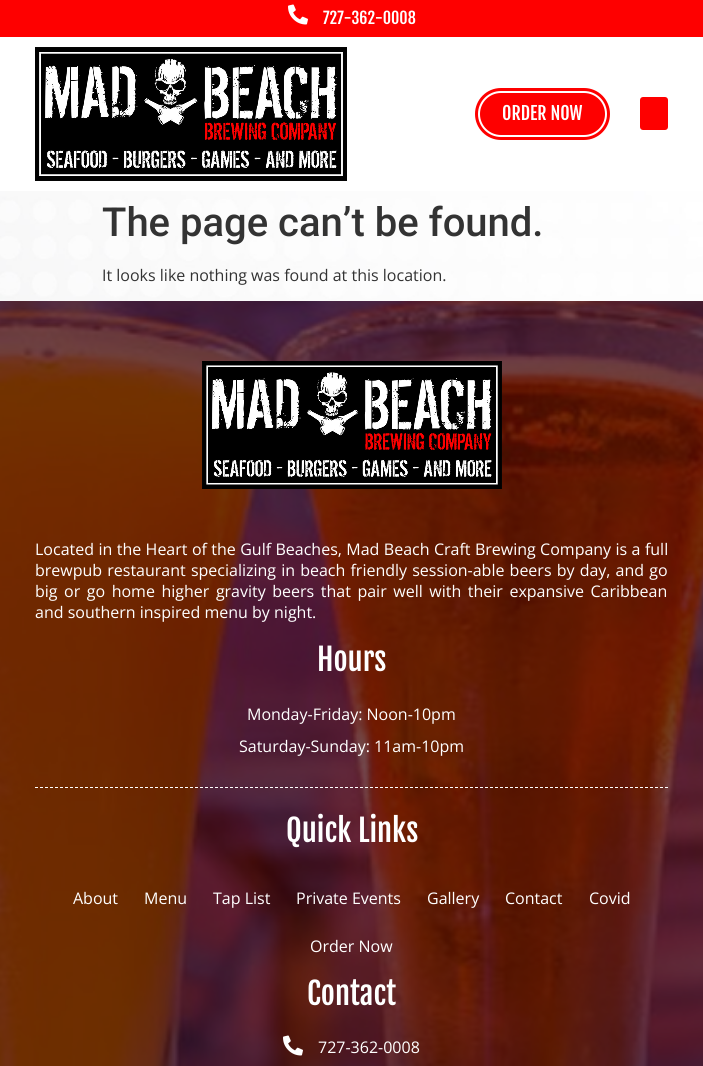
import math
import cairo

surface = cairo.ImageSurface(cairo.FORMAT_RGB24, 703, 1066)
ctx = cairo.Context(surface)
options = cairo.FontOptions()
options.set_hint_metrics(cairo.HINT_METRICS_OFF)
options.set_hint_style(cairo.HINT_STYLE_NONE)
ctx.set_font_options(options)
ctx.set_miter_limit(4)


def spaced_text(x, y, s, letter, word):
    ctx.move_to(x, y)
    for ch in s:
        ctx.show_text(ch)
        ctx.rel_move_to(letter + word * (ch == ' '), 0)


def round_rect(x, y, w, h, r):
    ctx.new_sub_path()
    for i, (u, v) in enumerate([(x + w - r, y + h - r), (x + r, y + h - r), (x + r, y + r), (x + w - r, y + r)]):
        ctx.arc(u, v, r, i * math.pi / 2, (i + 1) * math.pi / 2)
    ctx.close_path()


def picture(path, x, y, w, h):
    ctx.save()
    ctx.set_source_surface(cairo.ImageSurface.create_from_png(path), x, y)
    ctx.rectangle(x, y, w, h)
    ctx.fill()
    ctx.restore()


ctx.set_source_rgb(1, 1, 1)
ctx.paint()
picture("img1.png", 0, 191, 703, 110)
ctx.set_source_rgb(0.996, 0, 0)
ctx.rectangle(0, 0, 703, 37)
ctx.fill()
picture("img2.png", 288, 4, 20, 21)
ctx.select_font_face("Fjalla One")
ctx.set_font_size(16)
ctx.set_source_rgb(1, 1, 1)
ctx.move_to(323, 24)
ctx.show_text("727-362-0008")
picture("img3.png", 35, 47, 312, 134)
ctx.set_source_rgb(0.996, 0, 0)
round_rect(475, 88, 135, 52, 26)
ctx.fill()
round_rect(479, 92, 127, 44, 22)
ctx.set_source_rgb(1, 1, 1)
ctx.stroke()
ctx.set_font_size(18)
ctx.move_to(502, 120)
ctx.show_text("ORDER NOW")
ctx.set_source_rgb(0.996, 0, 0)
round_rect(640, 97, 28, 33, 3)
ctx.fill()
ctx.select_font_face("Roboto Medium")
ctx.set_font_size(40)
ctx.set_source_rgb(0.2, 0.2, 0.2)
ctx.move_to(102, 236)
ctx.show_text("The page can’t be found.")
ctx.select_font_face("Open Sans")
ctx.set_font_size(16)
ctx.move_to(102, 281)
ctx.show_text("It looks like nothing was found at this location.")
picture("img4.png", 0, 301, 703, 765)
picture("img5.png", 202, 361, 300, 128)
ctx.set_source_rgb(1, 1, 1)
spaced_text(35, 555, "Located in the Heart of the Gulf Beaches, Mad Beach Craft Brewing Company is a full", 0, 0.25)
spaced_text(35, 576, "brewpub restaurant specializing in beach friendly session-able beers by day, and go", 0, 1)
spaced_text(35, 597, "big or go home higher gravity beers that pair well with their expansive Caribbean", 0, 2.4)
ctx.move_to(35, 618)
ctx.show_text("and southern inspired menu by night.")
ctx.select_font_face("Fjalla One")
ctx.set_font_size(30.5)
ctx.move_to(317, 671)
ctx.show_text("Hours")
ctx.select_font_face("Open Sans")
ctx.set_font_size(16)
ctx.move_to(247, 720)
ctx.show_text("Monday-Friday: Noon-10pm")
ctx.new_path()
ctx.move_to(35, 787.5)
ctx.line_to(668, 787.5)
ctx.set_line_width(1)
ctx.set_dash([3, 2])
ctx.stroke()
ctx.move_to(239, 752)
ctx.show_text("Saturday-Sunday: 11am-10pm")
ctx.select_font_face("Fjalla One")
ctx.set_font_size(30.5)
ctx.move_to(286, 842)
ctx.show_text("Quick Links")
ctx.select_font_face("Open Sans")
ctx.set_font_size(16)
ctx.move_to(73, 904)
ctx.show_text("About")
ctx.move_to(144, 904)
ctx.show_text("Menu")
ctx.move_to(213, 904)
ctx.show_text("Tap List")
ctx.move_to(296, 904)
ctx.show_text("Private Events")
ctx.move_to(427, 904)
ctx.show_text("Gallery")
ctx.move_to(505, 904)
ctx.show_text("Contact")
ctx.move_to(589, 904)
ctx.show_text("Covid")
ctx.move_to(310, 952)
ctx.show_text("Order Now")
ctx.select_font_face("Fjalla One")
ctx.set_font_size(30.5)
ctx.move_to(307, 1005)
ctx.show_text("Contact")
picture("img6.png", 283, 1035, 20, 21)
ctx.select_font_face("Open Sans")
ctx.set_font_size(16)
ctx.move_to(318, 1053)
ctx.show_text("727-362-0008")
surface.write_to_png("page.png")
